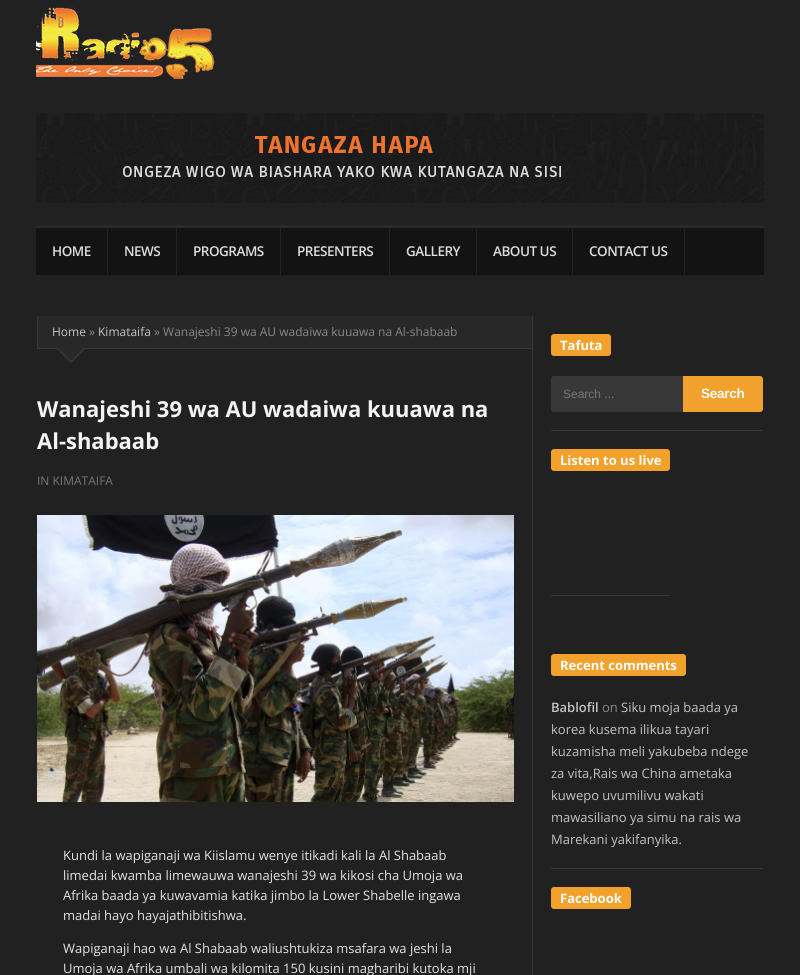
import math
import cairo

surface = cairo.ImageSurface(cairo.FORMAT_RGB24, 800, 975)
ctx = cairo.Context(surface)
options = cairo.FontOptions()
options.set_hint_metrics(cairo.HINT_METRICS_OFF)
options.set_hint_style(cairo.HINT_STYLE_NONE)
ctx.set_font_options(options)
ctx.set_miter_limit(4)


def spaced_text(x, y, s, letter, word):
    ctx.move_to(x, y)
    for ch in s:
        ctx.show_text(ch)
        ctx.rel_move_to(letter + word * (ch == ' '), 0)


def round_rect(x, y, w, h, r):
    ctx.new_sub_path()
    for i, (u, v) in enumerate([(x + w - r, y + h - r), (x + r, y + h - r), (x + r, y + r), (x + w - r, y + r)]):
        ctx.arc(u, v, r, i * math.pi / 2, (i + 1) * math.pi / 2)
    ctx.close_path()


def picture(path, x, y, w, h):
    ctx.save()
    ctx.set_source_surface(cairo.ImageSurface.create_from_png(path), x, y)
    ctx.rectangle(x, y, w, h)
    ctx.fill()
    ctx.restore()


ctx.set_source_rgb(0.129, 0.129, 0.129)
ctx.paint()
picture("img1.png", 36, 6, 179, 73)
picture("img2.png", 36, 113, 728, 90)
ctx.set_source_rgb(0.075, 0.075, 0.075)
ctx.rectangle(36, 228, 728, 47)
ctx.fill()
ctx.set_source_rgb(0.157, 0.157, 0.157)
ctx.rectangle(36, 225, 728, 3)
ctx.fill()
ctx.set_source_rgb(0.137, 0.137, 0.137)
ctx.new_path()
ctx.move_to(108, 225)
ctx.line_to(108, 275)
ctx.line_to(107, 275)
ctx.line_to(107, 228)
ctx.close_path()
ctx.fill()
ctx.select_font_face("Open Sans SemiBold")
ctx.set_font_size(13.5)
ctx.set_source_rgb(0.867, 0.867, 0.867)
spaced_text(52, 256, "HOME", -0.5, 0)
ctx.set_source_rgb(0.137, 0.137, 0.137)
ctx.new_path()
ctx.move_to(177, 225)
ctx.line_to(177, 275)
ctx.line_to(176, 275)
ctx.line_to(176, 228)
ctx.close_path()
ctx.fill()
ctx.set_source_rgb(0.867, 0.867, 0.867)
spaced_text(124, 256, "NEWS", -0.5, 0)
ctx.set_source_rgb(0.137, 0.137, 0.137)
ctx.new_path()
ctx.move_to(281, 225)
ctx.line_to(281, 275)
ctx.line_to(280, 275)
ctx.line_to(280, 228)
ctx.close_path()
ctx.fill()
ctx.set_source_rgb(0.867, 0.867, 0.867)
spaced_text(193, 256, "PROGRAMS", -0.5, 0)
ctx.set_source_rgb(0.137, 0.137, 0.137)
ctx.new_path()
ctx.move_to(390, 225)
ctx.line_to(390, 275)
ctx.line_to(389, 275)
ctx.line_to(389, 228)
ctx.close_path()
ctx.fill()
ctx.set_source_rgb(0.867, 0.867, 0.867)
spaced_text(297, 256, "PRESENTERS", -0.5, 0)
ctx.set_source_rgb(0.137, 0.137, 0.137)
ctx.new_path()
ctx.move_to(477, 225)
ctx.line_to(477, 275)
ctx.line_to(476, 275)
ctx.line_to(476, 228)
ctx.close_path()
ctx.fill()
ctx.set_source_rgb(0.867, 0.867, 0.867)
spaced_text(406, 256, "GALLERY", -0.5, 0)
ctx.set_source_rgb(0.137, 0.137, 0.137)
ctx.new_path()
ctx.move_to(573, 225)
ctx.line_to(573, 275)
ctx.line_to(572, 275)
ctx.line_to(572, 228)
ctx.close_path()
ctx.fill()
ctx.set_source_rgb(0.867, 0.867, 0.867)
spaced_text(493, 256, "ABOUT US", -0.5, 0)
ctx.set_source_rgb(0.137, 0.137, 0.137)
ctx.new_path()
ctx.move_to(685, 225)
ctx.line_to(685, 275)
ctx.line_to(684, 275)
ctx.line_to(684, 228)
ctx.close_path()
ctx.fill()
ctx.set_source_rgb(0.867, 0.867, 0.867)
spaced_text(589, 256, "CONTACT US", -0.5, 0)
ctx.set_source_rgb(0.22, 0.22, 0.22)
ctx.rectangle(532, 316, 1, 659)
ctx.fill()
ctx.set_source_rgb(0.157, 0.157, 0.157)
ctx.rectangle(38, 316, 494, 32)
ctx.fill()
ctx.set_source_rgb(0.22, 0.22, 0.22)
ctx.rectangle(37, 348, 495, 1)
ctx.fill()
ctx.rectangle(37, 316, 1, 33)
ctx.fill()
ctx.select_font_face("Open Sans")
ctx.set_font_size(12)
ctx.set_source_rgb(0.765, 0.765, 0.765)
ctx.move_to(52, 336)
ctx.show_text("Home")
ctx.set_source_rgb(0.533, 0.533, 0.533)
ctx.move_to(89, 336)
ctx.show_text("»")
ctx.set_source_rgb(0.765, 0.765, 0.765)
ctx.move_to(98, 336)
ctx.show_text("Kimataifa")
ctx.set_source_rgb(0.533, 0.533, 0.533)
ctx.move_to(154, 336)
ctx.show_text("» Wanajeshi 39 wa AU wadaiwa kuuawa na Al-shabaab")
ctx.set_source_rgb(0.22, 0.22, 0.22)
ctx.new_path()
ctx.move_to(56, 348)
ctx.line_to(86, 348)
ctx.line_to(71, 363)
ctx.close_path()
ctx.fill()
ctx.set_source_rgb(0.157, 0.157, 0.157)
ctx.new_path()
ctx.move_to(56, 346)
ctx.line_to(86, 346)
ctx.line_to(71, 361)
ctx.close_path()
ctx.fill()
ctx.select_font_face("Open Sans", cairo.FONT_SLANT_NORMAL, cairo.FONT_WEIGHT_BOLD)
ctx.set_font_size(22)
ctx.set_source_rgb(0.953, 0.953, 0.953)
ctx.move_to(37, 417)
ctx.show_text("Wanajeshi 39 wa AU wadaiwa kuuawa na")
ctx.move_to(37, 449)
ctx.show_text("Al-shabaab")
ctx.select_font_face("Open Sans")
ctx.set_font_size(12)
ctx.set_source_rgb(0.467, 0.467, 0.467)
ctx.move_to(37, 485)
ctx.show_text("IN KIMATAIFA")
picture("img3.png", 37, 515, 477, 287)
ctx.set_font_size(13)
ctx.set_source_rgb(0.89, 0.89, 0.89)
ctx.move_to(63, 860)
ctx.show_text("Kundi la wapiganaji wa Kiislamu wenye itikadi kali la Al Shabaab")
ctx.move_to(63, 880)
ctx.show_text("limedai kwamba limewauwa wanajeshi 39 wa kikosi cha Umoja wa")
ctx.move_to(63, 900)
ctx.show_text("Afrika baada ya kuwavamia katika jimbo la Lower Shabelle ingawa")
ctx.move_to(63, 920)
ctx.show_text("madai hayo hayajathibitishwa.")
ctx.move_to(63, 953)
ctx.show_text("Wapiganaji hao wa Al Shabaab waliushtukiza msafara wa jeshi la")
ctx.move_to(63, 973)
ctx.show_text("Umoja wa Afrika umbali wa kilomita 150 kusini magharibi kutoka mji")
ctx.set_source_rgb(0.22, 0.22, 0.22)
ctx.rectangle(551, 430, 212, 1)
ctx.fill()
ctx.set_source_rgb(0.949, 0.631, 0.176)
round_rect(551, 334, 60, 22, 3)
ctx.fill()
ctx.select_font_face("Open Sans", cairo.FONT_SLANT_NORMAL, cairo.FONT_WEIGHT_BOLD)
ctx.set_source_rgb(1, 1, 1)
ctx.move_to(560, 350)
ctx.show_text("Tafuta")
ctx.set_source_rgb(0.22, 0.22, 0.22)
ctx.new_path()
ctx.move_to(554, 376)
ctx.line_to(683, 376)
ctx.line_to(683, 412)
ctx.line_to(554, 412)
ctx.curve_to(552.5, 412, 551, 410.5, 551, 409)
ctx.line_to(551, 379)
ctx.curve_to(551, 377.5, 552.5, 376, 554, 376)
ctx.close_path()
ctx.fill()
ctx.select_font_face("Liberation Sans")
ctx.set_font_size(12)
ctx.set_source_rgb(0.467, 0.467, 0.467)
ctx.move_to(563, 398)
ctx.show_text("Search ...")
ctx.set_source_rgb(0.949, 0.631, 0.176)
ctx.new_path()
ctx.move_to(683, 376)
ctx.line_to(760, 376)
ctx.curve_to(761.5, 376, 763, 377.5, 763, 379)
ctx.line_to(763, 409)
ctx.curve_to(763, 410.5, 761.5, 412, 760, 412)
ctx.line_to(683, 412)
ctx.close_path()
ctx.fill()
ctx.select_font_face("Liberation Sans", cairo.FONT_SLANT_NORMAL, cairo.FONT_WEIGHT_BOLD)
ctx.set_font_size(13.5)
ctx.set_source_rgb(1, 1, 1)
spaced_text(701, 398, "Search", -0.25, 0)
ctx.set_source_rgb(0.22, 0.22, 0.22)
ctx.rectangle(551, 595, 119, 1)
ctx.fill()
ctx.set_source_rgb(0.949, 0.631, 0.176)
round_rect(551, 449, 119, 22, 3)
ctx.fill()
ctx.select_font_face("Open Sans", cairo.FONT_SLANT_NORMAL, cairo.FONT_WEIGHT_BOLD)
ctx.set_font_size(13)
ctx.set_source_rgb(1, 1, 1)
ctx.move_to(560, 465)
ctx.show_text("Listen to us live")
ctx.set_source_rgb(0.22, 0.22, 0.22)
ctx.rectangle(551, 868, 212, 1)
ctx.fill()
ctx.set_source_rgb(0.949, 0.631, 0.176)
round_rect(551, 654, 135, 22, 3)
ctx.fill()
ctx.set_source_rgb(1, 1, 1)
ctx.move_to(560, 670)
ctx.show_text("Recent comments")
ctx.select_font_face("Open Sans SemiBold")
ctx.set_source_rgb(0.765, 0.765, 0.765)
ctx.move_to(551, 712)
ctx.show_text("Bablofil")
ctx.select_font_face("Open Sans")
ctx.set_source_rgb(0.533, 0.533, 0.533)
ctx.move_to(602, 712)
ctx.show_text("on")
ctx.set_source_rgb(0.765, 0.765, 0.765)
ctx.move_to(621, 712)
ctx.show_text("Siku moja baada ya")
ctx.move_to(551, 734)
ctx.show_text("korea kusema ilikua tayari")
ctx.move_to(551, 756)
ctx.show_text("kuzamisha meli yakubeba ndege")
ctx.move_to(551, 778)
ctx.show_text("za vita,Rais wa China ametaka")
ctx.move_to(551, 800)
ctx.show_text("kuwepo uvumilivu wakati")
ctx.move_to(551, 822)
ctx.show_text("mawasiliano ya simu na rais wa")
ctx.move_to(551, 844)
ctx.show_text("Marekani yakifanyika.")
ctx.set_source_rgb(0.949, 0.631, 0.176)
round_rect(551, 887, 80, 22, 3)
ctx.fill()
ctx.select_font_face("Open Sans", cairo.FONT_SLANT_NORMAL, cairo.FONT_WEIGHT_BOLD)
ctx.set_source_rgb(1, 1, 1)
ctx.move_to(560, 903)
ctx.show_text("Facebook")
surface.write_to_png("page.png")
